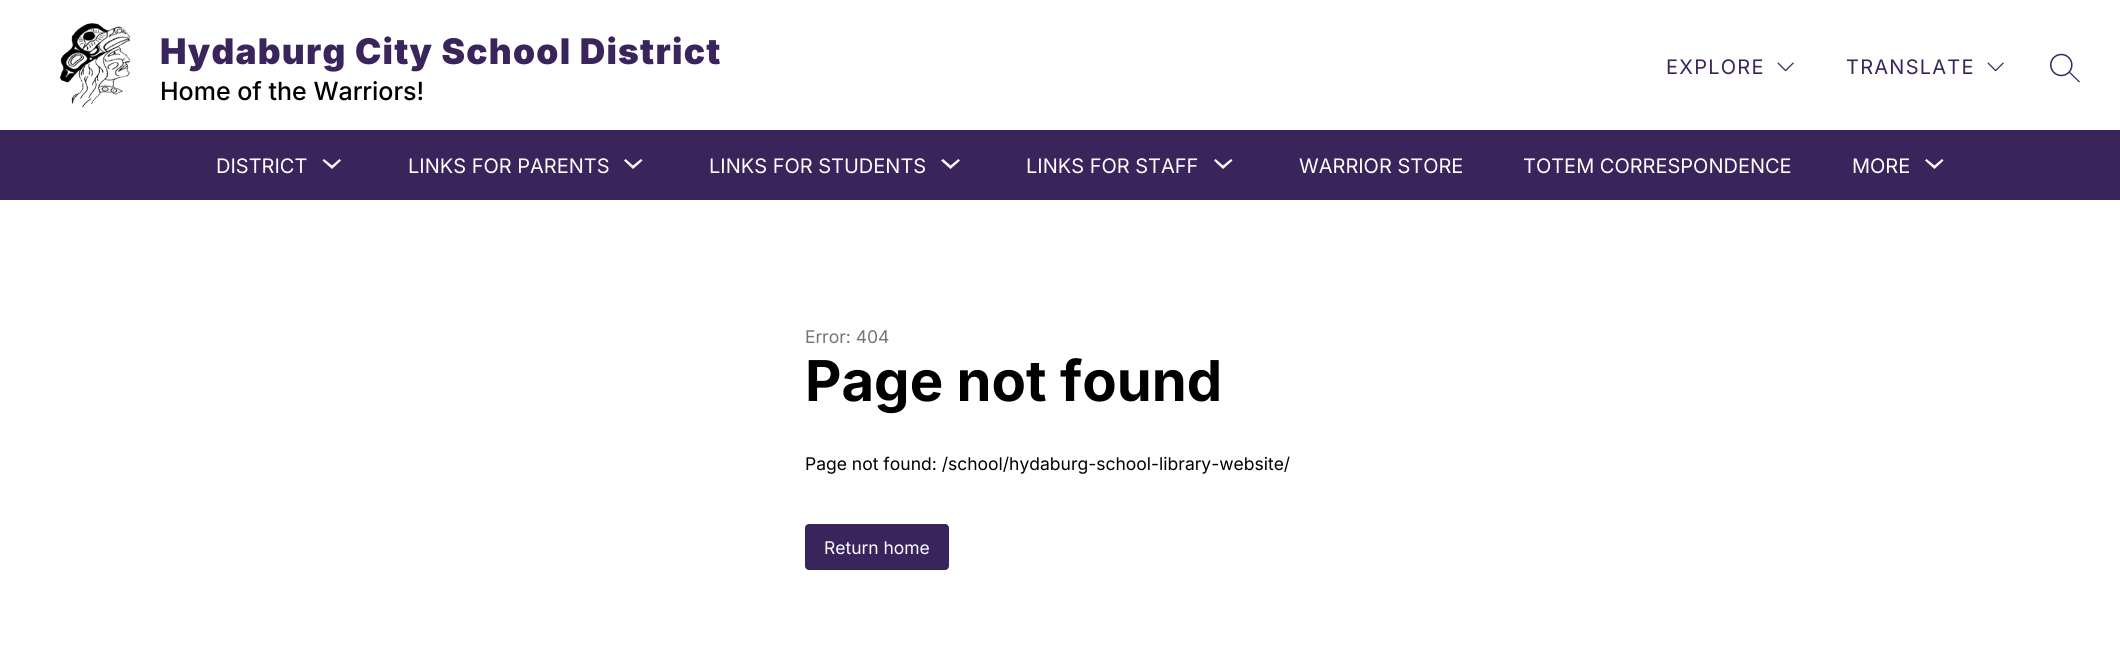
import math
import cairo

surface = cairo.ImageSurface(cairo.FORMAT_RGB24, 2120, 663)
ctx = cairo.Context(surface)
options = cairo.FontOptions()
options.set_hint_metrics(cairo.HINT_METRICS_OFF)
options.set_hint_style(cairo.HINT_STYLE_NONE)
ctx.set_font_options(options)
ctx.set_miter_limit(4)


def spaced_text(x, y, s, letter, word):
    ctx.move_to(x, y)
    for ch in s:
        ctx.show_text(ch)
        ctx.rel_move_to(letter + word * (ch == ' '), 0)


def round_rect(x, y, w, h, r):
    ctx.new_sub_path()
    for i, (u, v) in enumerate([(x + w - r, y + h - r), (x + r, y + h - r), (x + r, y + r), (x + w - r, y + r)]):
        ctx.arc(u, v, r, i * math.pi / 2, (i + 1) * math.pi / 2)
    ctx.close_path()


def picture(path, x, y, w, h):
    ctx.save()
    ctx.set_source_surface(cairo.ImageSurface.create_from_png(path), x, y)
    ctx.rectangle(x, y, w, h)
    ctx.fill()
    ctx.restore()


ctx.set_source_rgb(1, 1, 1)
ctx.paint()
picture("img1.png", 59, 23, 72, 85)
ctx.select_font_face("Inter Black")
ctx.set_font_size(35.3)
ctx.set_source_rgb(0.227, 0.141, 0.361)
spaced_text(160, 64, "Hydaburg City School District", 1.25, 0)
ctx.select_font_face("Inter Medium")
ctx.set_font_size(25)
ctx.set_source_rgb(0, 0, 0)
ctx.move_to(160, 100)
ctx.show_text("Home of the Warriors!")
ctx.select_font_face("Inter")
ctx.set_font_size(20)
ctx.set_source_rgb(0.227, 0.141, 0.361)
spaced_text(1666, 74, "EXPLORE", 1.25, 0)
picture("img2.png", 1777, 62, 17, 10)
spaced_text(1846, 74, "TRANSLATE", 1.25, 0)
picture("img2.png", 1987, 62, 17, 10)
picture("img3.png", 2050, 53, 30, 30)
ctx.rectangle(0, 130, 2120, 70)
ctx.fill()
ctx.set_source_rgb(1, 1, 1)
ctx.move_to(216, 173)
ctx.show_text("DISTRICT")
ctx.set_fill_rule(cairo.FILL_RULE_EVEN_ODD)
ctx.new_path()
ctx.move_to(339.5, 159)
ctx.line_to(332, 165.5)
ctx.line_to(324, 159)
ctx.line_to(322.5, 160.5)
ctx.line_to(332, 169)
ctx.line_to(341, 160.5)
ctx.close_path()
ctx.fill()
ctx.move_to(408, 173)
ctx.show_text("LINKS FOR PARENTS")
ctx.new_path()
ctx.move_to(641, 159)
ctx.line_to(633, 165.5)
ctx.line_to(625.5, 159)
ctx.line_to(624, 160.5)
ctx.line_to(633, 169)
ctx.line_to(642.5, 160.5)
ctx.close_path()
ctx.fill()
ctx.move_to(709, 173)
ctx.show_text("LINKS FOR STUDENTS")
ctx.new_path()
ctx.move_to(958.5, 159)
ctx.line_to(950.5, 165.5)
ctx.line_to(943, 159)
ctx.line_to(941, 160.5)
ctx.line_to(950.5, 169)
ctx.line_to(960, 160.5)
ctx.close_path()
ctx.fill()
ctx.move_to(1026, 173)
ctx.show_text("LINKS FOR STAFF")
ctx.new_path()
ctx.move_to(1231, 159)
ctx.line_to(1223, 165.5)
ctx.line_to(1215.5, 159)
ctx.line_to(1214, 160.5)
ctx.line_to(1223, 169)
ctx.line_to(1232.5, 160.5)
ctx.close_path()
ctx.fill()
ctx.move_to(1299, 173)
ctx.show_text("WARRIOR STORE")
ctx.move_to(1523, 173)
ctx.show_text("TOTEM CORRESPONDENCE")
ctx.move_to(1852, 173)
ctx.show_text("MORE")
ctx.new_path()
ctx.move_to(1942, 159)
ctx.line_to(1934.5, 165.5)
ctx.line_to(1926.5, 159)
ctx.line_to(1925, 160.5)
ctx.line_to(1934.5, 169)
ctx.line_to(1943.5, 160.5)
ctx.close_path()
ctx.fill()
ctx.set_font_size(17.5)
ctx.set_source_rgb(0.455, 0.455, 0.455)
ctx.move_to(805, 343)
ctx.show_text("Error: 404")
ctx.select_font_face("Inter", cairo.FONT_SLANT_NORMAL, cairo.FONT_WEIGHT_BOLD)
ctx.set_font_size(56.25)
ctx.set_source_rgb(0, 0, 0)
ctx.move_to(805, 401)
ctx.show_text("Page not found")
ctx.select_font_face("Inter")
ctx.set_font_size(17.5)
ctx.move_to(805, 470)
ctx.show_text("Page not found: /school/hydaburg-school-library-website/")
ctx.set_source_rgb(0.227, 0.141, 0.361)
round_rect(805, 524, 144, 46, 4)
ctx.fill()
ctx.set_source_rgb(1, 1, 1)
ctx.move_to(824, 554)
ctx.show_text("Return home")
surface.write_to_png("page.png")
